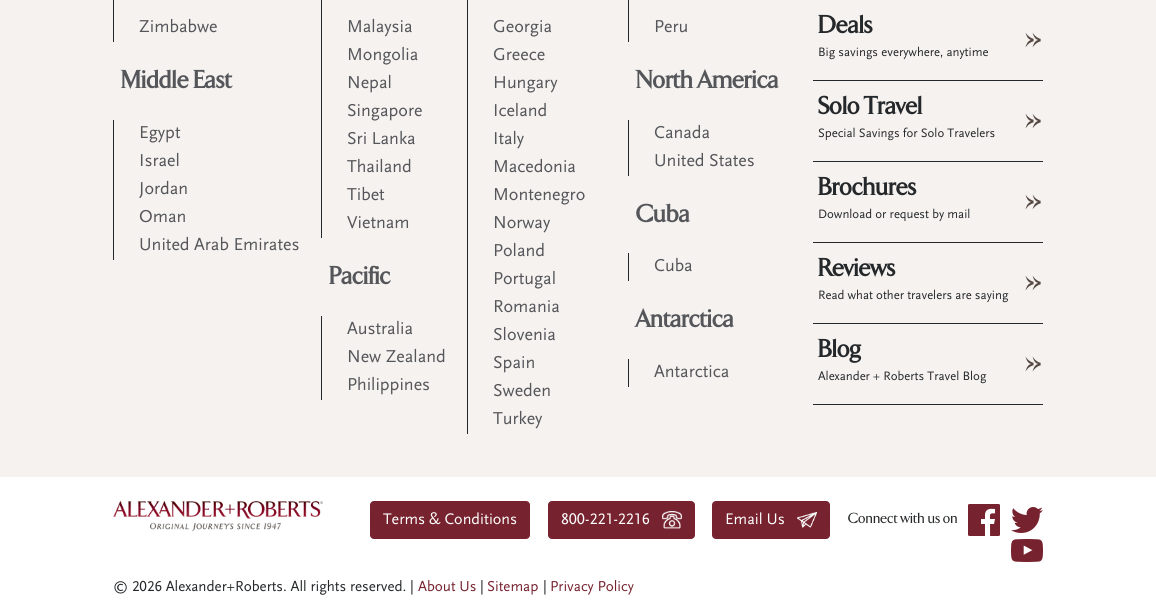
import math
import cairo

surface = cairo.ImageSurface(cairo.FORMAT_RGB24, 1156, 613)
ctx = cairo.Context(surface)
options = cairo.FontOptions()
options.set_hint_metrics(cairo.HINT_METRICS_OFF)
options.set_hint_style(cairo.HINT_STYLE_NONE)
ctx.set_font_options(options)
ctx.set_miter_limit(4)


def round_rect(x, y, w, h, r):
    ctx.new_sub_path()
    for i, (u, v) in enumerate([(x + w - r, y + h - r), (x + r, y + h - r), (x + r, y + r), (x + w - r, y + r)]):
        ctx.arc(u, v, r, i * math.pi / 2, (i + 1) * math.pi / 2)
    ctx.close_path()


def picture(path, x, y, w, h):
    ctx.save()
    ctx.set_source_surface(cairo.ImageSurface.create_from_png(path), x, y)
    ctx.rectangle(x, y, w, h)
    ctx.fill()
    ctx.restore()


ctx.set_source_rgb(1, 1, 1)
ctx.paint()
ctx.set_source_rgb(0.961, 0.949, 0.941)
ctx.rectangle(0, 0, 1156, 477)
ctx.fill()
ctx.set_source_rgb(0.145, 0.157, 0.165)
ctx.rectangle(113, 0, 1, 42)
ctx.fill()
ctx.select_font_face("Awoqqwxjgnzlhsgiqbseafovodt")
ctx.set_font_size(18)
ctx.set_source_rgb(0.329, 0.337, 0.353)
ctx.move_to(139, 32)
ctx.show_text("Zimbabwe")
ctx.set_source_rgb(0.145, 0.157, 0.165)
ctx.rectangle(321, 0, 1, 238)
ctx.fill()
ctx.set_source_rgb(0.329, 0.337, 0.353)
ctx.move_to(347, 32)
ctx.show_text("Malaysia")
ctx.move_to(347, 60)
ctx.show_text("Mongolia")
ctx.move_to(347, 88)
ctx.show_text("Nepal")
ctx.move_to(347, 116)
ctx.show_text("Singapore")
ctx.move_to(347, 144)
ctx.show_text("Sri Lanka")
ctx.move_to(347, 172)
ctx.show_text("Thailand")
ctx.move_to(347, 200)
ctx.show_text("Tibet")
ctx.move_to(347, 228)
ctx.show_text("Vietnam")
ctx.set_source_rgb(0.145, 0.157, 0.165)
ctx.rectangle(467, 0, 1, 434)
ctx.fill()
ctx.set_source_rgb(0.329, 0.337, 0.353)
ctx.move_to(493, 32)
ctx.show_text("Georgia")
ctx.move_to(493, 60)
ctx.show_text("Greece")
ctx.move_to(493, 88)
ctx.show_text("Hungary")
ctx.move_to(493, 116)
ctx.show_text("Iceland")
ctx.move_to(493, 144)
ctx.show_text("Italy")
ctx.move_to(493, 172)
ctx.show_text("Macedonia")
ctx.move_to(493, 200)
ctx.show_text("Montenegro")
ctx.move_to(493, 228)
ctx.show_text("Norway")
ctx.move_to(493, 256)
ctx.show_text("Poland")
ctx.move_to(493, 284)
ctx.show_text("Portugal")
ctx.move_to(493, 312)
ctx.show_text("Romania")
ctx.move_to(493, 340)
ctx.show_text("Slovenia")
ctx.move_to(493, 368)
ctx.show_text("Spain")
ctx.move_to(493, 396)
ctx.show_text("Sweden")
ctx.move_to(493, 424)
ctx.show_text("Turkey")
ctx.set_source_rgb(0.145, 0.157, 0.165)
ctx.rectangle(628, 0, 1, 42)
ctx.fill()
ctx.set_source_rgb(0.329, 0.337, 0.353)
ctx.move_to(654, 32)
ctx.show_text("Peru")
picture("img1.png", 1025, 32, 16, 16)
ctx.set_source_rgb(0.145, 0.157, 0.165)
ctx.rectangle(813, 80, 230, 1)
ctx.fill()
ctx.select_font_face("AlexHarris", cairo.FONT_SLANT_NORMAL, cairo.FONT_WEIGHT_BOLD)
ctx.set_font_size(25.5)
ctx.move_to(818, 33)
ctx.show_text("Deals")
ctx.select_font_face("Awoqqwxjgnzlhsgiqbseafovodt")
ctx.set_font_size(12.75)
ctx.move_to(818, 56)
ctx.show_text("Big savings everywhere, anytime")
picture("img1.png", 1025, 113, 16, 16)
ctx.rectangle(813, 161, 230, 1)
ctx.fill()
ctx.select_font_face("AlexHarris", cairo.FONT_SLANT_NORMAL, cairo.FONT_WEIGHT_BOLD)
ctx.set_font_size(25.5)
ctx.move_to(818, 114)
ctx.show_text("Solo Travel")
ctx.select_font_face("Awoqqwxjgnzlhsgiqbseafovodt")
ctx.set_font_size(12.75)
ctx.move_to(818, 137)
ctx.show_text("Special Savings for Solo Travelers")
picture("img1.png", 1025, 194, 16, 16)
ctx.rectangle(813, 242, 230, 1)
ctx.fill()
ctx.select_font_face("AlexHarris", cairo.FONT_SLANT_NORMAL, cairo.FONT_WEIGHT_BOLD)
ctx.set_font_size(25.5)
ctx.move_to(818, 195)
ctx.show_text("Brochures")
ctx.select_font_face("Awoqqwxjgnzlhsgiqbseafovodt")
ctx.set_font_size(12.75)
ctx.move_to(818, 218)
ctx.show_text("Download or request by mail")
picture("img1.png", 1025, 275, 16, 16)
ctx.rectangle(813, 323, 230, 1)
ctx.fill()
ctx.select_font_face("AlexHarris", cairo.FONT_SLANT_NORMAL, cairo.FONT_WEIGHT_BOLD)
ctx.set_font_size(25.5)
ctx.move_to(818, 276)
ctx.show_text("Reviews")
ctx.select_font_face("Awoqqwxjgnzlhsgiqbseafovodt")
ctx.set_font_size(12.75)
ctx.move_to(818, 299)
ctx.show_text("Read what other travelers are saying")
picture("img1.png", 1025, 356, 16, 16)
ctx.rectangle(813, 404, 230, 1)
ctx.fill()
ctx.select_font_face("AlexHarris", cairo.FONT_SLANT_NORMAL, cairo.FONT_WEIGHT_BOLD)
ctx.set_font_size(25.5)
ctx.move_to(818, 357)
ctx.show_text("Blog")
ctx.select_font_face("Awoqqwxjgnzlhsgiqbseafovodt")
ctx.set_font_size(12.75)
ctx.move_to(818, 380)
ctx.show_text("Alexander + Roberts Travel Blog")
ctx.select_font_face("AlexHarris", cairo.FONT_SLANT_NORMAL, cairo.FONT_WEIGHT_BOLD)
ctx.set_font_size(25.5)
ctx.set_source_rgb(0.329, 0.337, 0.353)
ctx.move_to(121, 88)
ctx.show_text("Middle East")
ctx.set_source_rgb(0.145, 0.157, 0.165)
ctx.rectangle(113, 120, 1, 140)
ctx.fill()
ctx.select_font_face("Awoqqwxjgnzlhsgiqbseafovodt")
ctx.set_font_size(18)
ctx.set_source_rgb(0.329, 0.337, 0.353)
ctx.move_to(139, 138)
ctx.show_text("Egypt")
ctx.move_to(139, 166)
ctx.show_text("Israel")
ctx.move_to(139, 194)
ctx.show_text("Jordan")
ctx.move_to(139, 222)
ctx.show_text("Oman")
ctx.move_to(139, 250)
ctx.show_text("United Arab Emirates")
ctx.select_font_face("AlexHarris", cairo.FONT_SLANT_NORMAL, cairo.FONT_WEIGHT_BOLD)
ctx.set_font_size(25.5)
ctx.move_to(636, 88)
ctx.show_text("North America")
ctx.set_source_rgb(0.145, 0.157, 0.165)
ctx.rectangle(628, 120, 1, 56)
ctx.fill()
ctx.select_font_face("Awoqqwxjgnzlhsgiqbseafovodt")
ctx.set_font_size(18)
ctx.set_source_rgb(0.329, 0.337, 0.353)
ctx.move_to(654, 138)
ctx.show_text("Canada")
ctx.move_to(654, 166)
ctx.show_text("United States")
ctx.select_font_face("AlexHarris", cairo.FONT_SLANT_NORMAL, cairo.FONT_WEIGHT_BOLD)
ctx.set_font_size(25.5)
ctx.move_to(636, 222)
ctx.show_text("Cuba")
ctx.set_source_rgb(0.145, 0.157, 0.165)
ctx.rectangle(628, 253, 1, 28)
ctx.fill()
ctx.select_font_face("Awoqqwxjgnzlhsgiqbseafovodt")
ctx.set_font_size(18)
ctx.set_source_rgb(0.329, 0.337, 0.353)
ctx.move_to(654, 271)
ctx.show_text("Cuba")
ctx.select_font_face("AlexHarris", cairo.FONT_SLANT_NORMAL, cairo.FONT_WEIGHT_BOLD)
ctx.set_font_size(25.5)
ctx.move_to(329, 284)
ctx.show_text("Pacific")
ctx.set_source_rgb(0.145, 0.157, 0.165)
ctx.rectangle(321, 316, 1, 84)
ctx.fill()
ctx.select_font_face("Awoqqwxjgnzlhsgiqbseafovodt")
ctx.set_font_size(18)
ctx.set_source_rgb(0.329, 0.337, 0.353)
ctx.move_to(347, 334)
ctx.show_text("Australia")
ctx.move_to(347, 362)
ctx.show_text("New Zealand")
ctx.move_to(347, 390)
ctx.show_text("Philippines")
ctx.select_font_face("AlexHarris", cairo.FONT_SLANT_NORMAL, cairo.FONT_WEIGHT_BOLD)
ctx.set_font_size(25.5)
ctx.move_to(636, 327)
ctx.show_text("Antarctica")
ctx.set_source_rgb(0.145, 0.157, 0.165)
ctx.rectangle(628, 359, 1, 28)
ctx.fill()
ctx.select_font_face("Awoqqwxjgnzlhsgiqbseafovodt")
ctx.set_font_size(18)
ctx.set_source_rgb(0.329, 0.337, 0.353)
ctx.move_to(654, 377)
ctx.show_text("Antarctica")
picture("img2.png", 113, 501, 210, 30)
ctx.set_source_rgb(0.463, 0.137, 0.184)
round_rect(370.5, 501.5, 159, 37, 3.5)
ctx.fill_preserve()
ctx.set_line_width(1)
ctx.stroke()
ctx.set_font_size(16)
ctx.set_source_rgb(1, 1, 1)
ctx.move_to(383, 524)
ctx.show_text("Terms & Conditions")
ctx.set_source_rgb(0.463, 0.137, 0.184)
round_rect(548.5, 501.5, 146, 37, 3.5)
ctx.fill_preserve()
ctx.stroke()
ctx.set_source_rgb(1, 1, 1)
ctx.move_to(561, 524)
ctx.show_text("800-221-2216")
picture("img3.png", 662, 511, 20, 18)
ctx.set_source_rgb(0.463, 0.137, 0.184)
round_rect(712.5, 501.5, 117, 37, 3.5)
ctx.fill_preserve()
ctx.stroke()
ctx.set_source_rgb(1, 1, 1)
ctx.move_to(725, 524)
ctx.show_text("Email Us")
picture("img4.png", 797, 512, 20, 16)
ctx.select_font_face("AlexHarris")
ctx.set_font_size(15)
ctx.set_source_rgb(0.145, 0.157, 0.165)
ctx.move_to(848, 523)
ctx.show_text("Connect with us on")
picture("img5.png", 968, 504, 32, 32)
picture("img6.png", 1011, 507, 32, 26)
picture("img7.png", 1011, 539, 32, 23)
ctx.select_font_face("Awoqqwxjgnzlhsgiqbseafovodt")
ctx.move_to(113, 591)
ctx.show_text("© 2026 Alexander+Roberts. All rights reserved. |")
ctx.set_source_rgb(0.463, 0.137, 0.184)
ctx.move_to(418, 591)
ctx.show_text("About Us")
ctx.set_source_rgb(0.145, 0.157, 0.165)
ctx.move_to(480, 591)
ctx.show_text("|")
ctx.set_source_rgb(0.463, 0.137, 0.184)
ctx.move_to(487, 591)
ctx.show_text("Sitemap")
ctx.set_source_rgb(0.145, 0.157, 0.165)
ctx.move_to(543, 591)
ctx.show_text("|")
ctx.set_source_rgb(0.463, 0.137, 0.184)
ctx.move_to(550, 591)
ctx.show_text("Privacy Policy")
surface.write_to_png("page.png")
